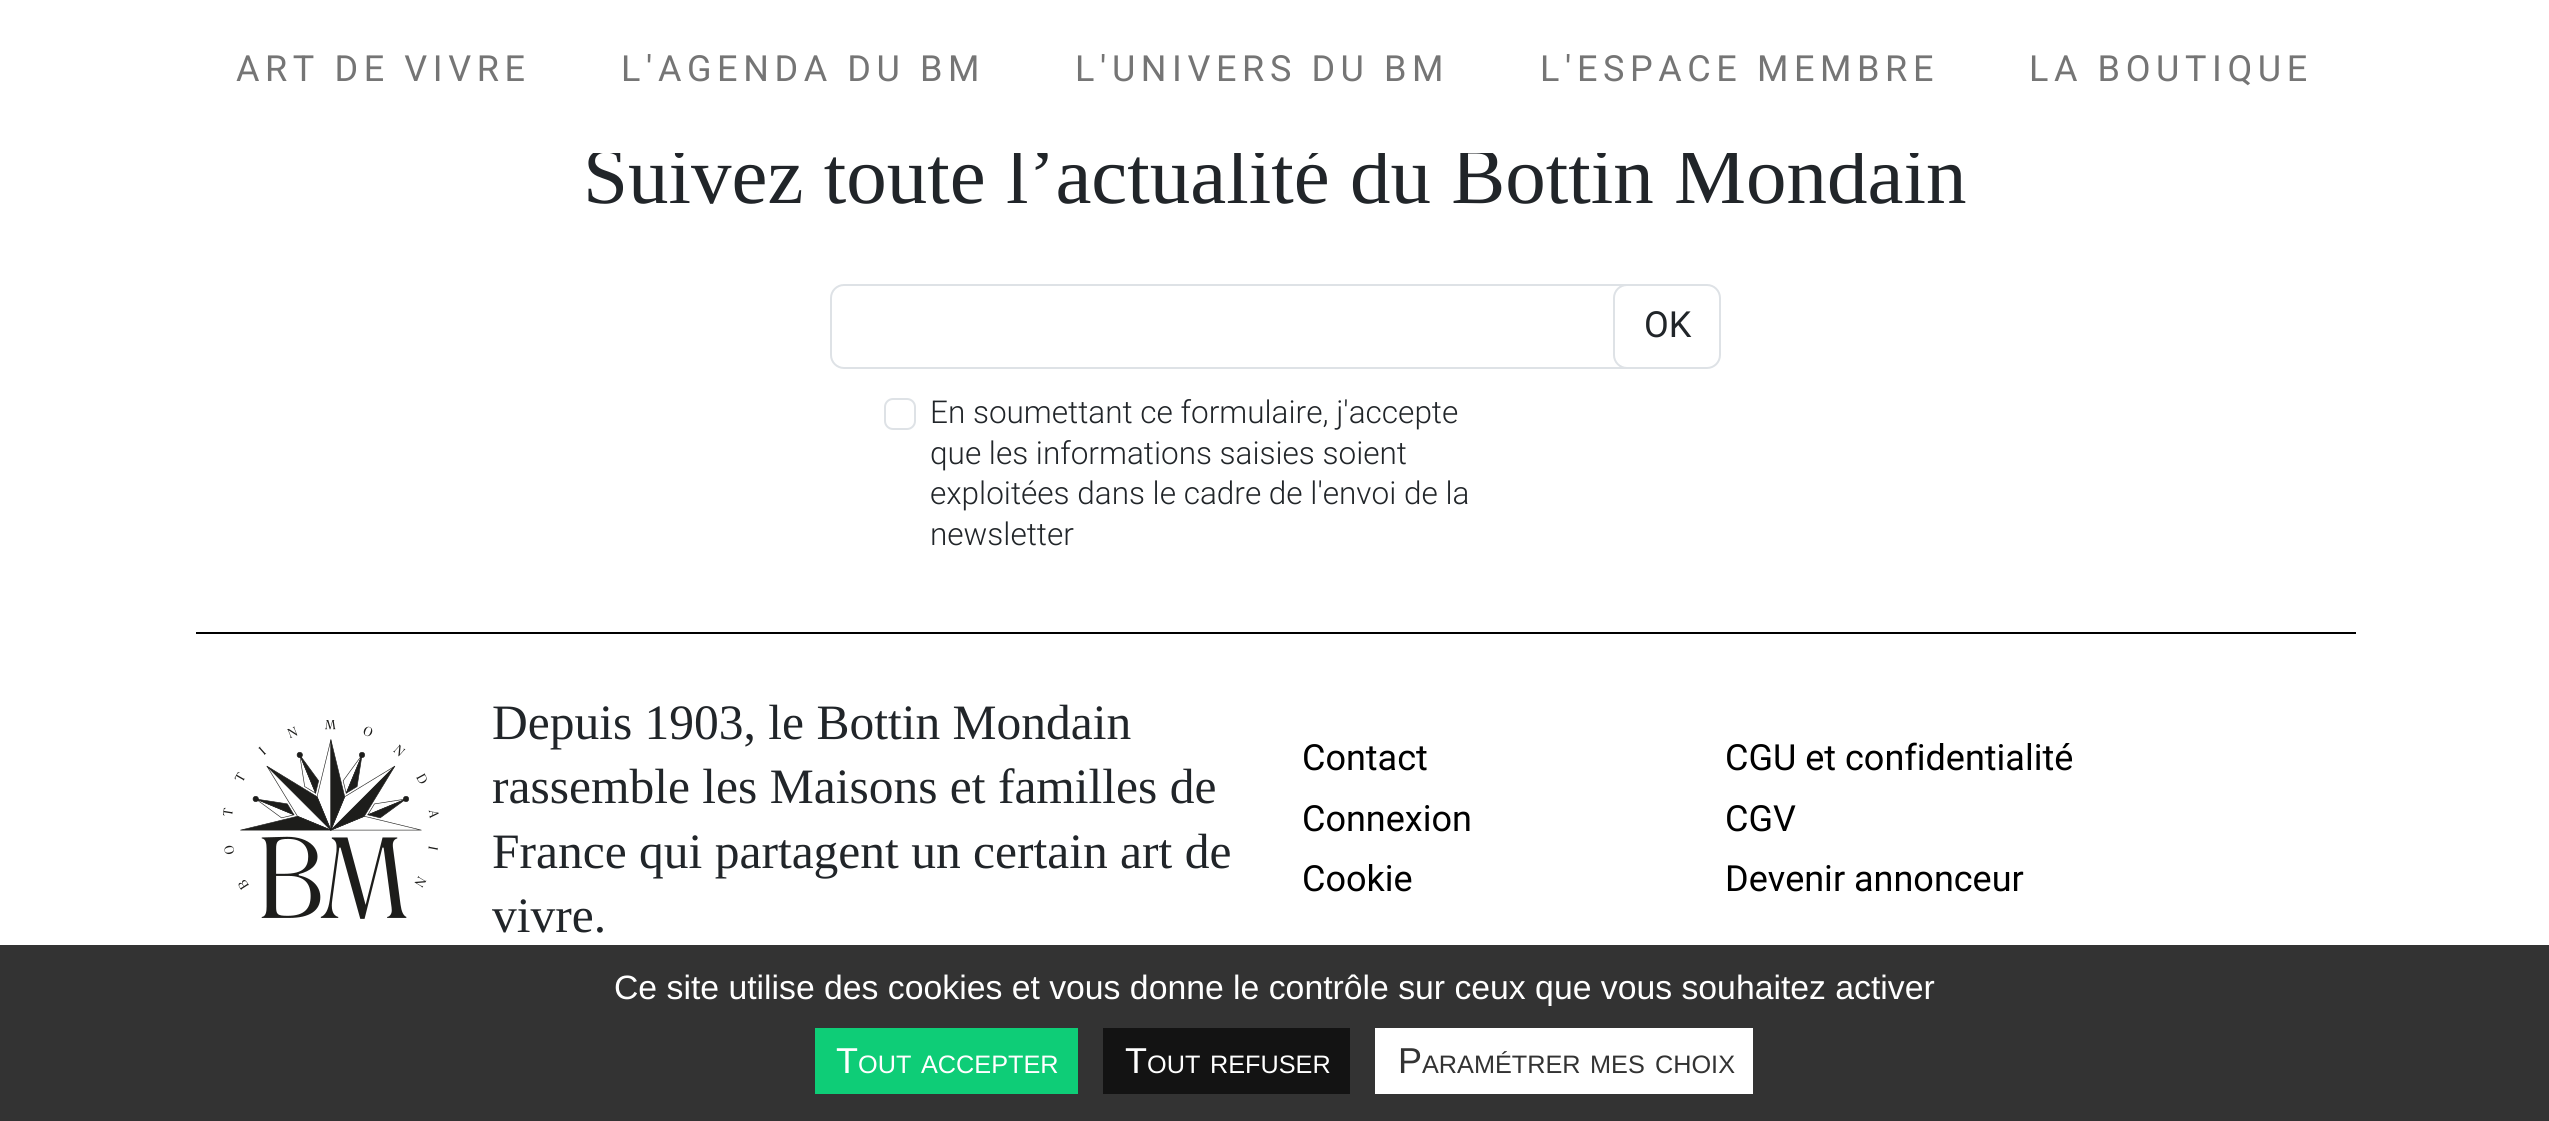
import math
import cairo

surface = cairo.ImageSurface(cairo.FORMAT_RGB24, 2549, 1121)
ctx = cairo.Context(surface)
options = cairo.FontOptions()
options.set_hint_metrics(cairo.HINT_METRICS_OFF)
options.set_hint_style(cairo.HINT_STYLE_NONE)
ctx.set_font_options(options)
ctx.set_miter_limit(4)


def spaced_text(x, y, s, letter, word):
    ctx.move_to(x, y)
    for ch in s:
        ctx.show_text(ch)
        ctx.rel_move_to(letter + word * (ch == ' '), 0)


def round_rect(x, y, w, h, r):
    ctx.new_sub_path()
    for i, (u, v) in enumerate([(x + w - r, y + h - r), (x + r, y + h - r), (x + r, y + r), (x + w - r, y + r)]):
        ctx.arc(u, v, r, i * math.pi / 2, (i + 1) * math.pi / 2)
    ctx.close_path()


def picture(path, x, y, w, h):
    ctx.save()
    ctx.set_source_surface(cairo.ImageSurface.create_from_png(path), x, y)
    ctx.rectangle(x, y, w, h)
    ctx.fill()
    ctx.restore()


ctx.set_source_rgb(1, 1, 1)
ctx.paint()
ctx.select_font_face("Liberation Serif")
ctx.set_font_size(81)
ctx.set_source_rgb(0.129, 0.145, 0.161)
ctx.move_to(583, 203)
ctx.show_text("Suivez toute l’actualité du Bottin Mondain")
ctx.set_source_rgb(1, 1, 1)
ctx.rectangle(593, 146, 1326, 7)
ctx.fill()
ctx.select_font_face("Roboto")
ctx.set_font_size(36)
ctx.set_source_rgb(0.459, 0.459, 0.459)
spaced_text(236, 81, "ART DE VIVRE", 5.6, 0)
spaced_text(621, 81, "L'AGENDA DU BM", 5.6, 0)
spaced_text(1075, 81, "L'UNIVERS DU BM", 5.6, 0)
spaced_text(1540, 81, "L'ESPACE MEMBRE", 5.6, 0)
spaced_text(2029, 81, "LA BOUTIQUE", 5.6, 0)
round_rect(831, 285, 849, 83, 13)
ctx.set_source_rgb(0.871, 0.886, 0.902)
ctx.stroke()
ctx.set_source_rgb(1, 1, 1)
round_rect(1616, 286, 103, 81, 11)
ctx.fill()
round_rect(1614, 285, 106, 83, 13)
ctx.set_source_rgb(0.871, 0.886, 0.902)
ctx.stroke()
ctx.set_source_rgb(0.129, 0.145, 0.161)
ctx.move_to(1644, 337)
ctx.show_text("OK")
round_rect(885, 399, 30, 30, 8)
ctx.set_source_rgb(0.871, 0.886, 0.902)
ctx.stroke()
ctx.select_font_face("Roboto Light")
ctx.set_font_size(31.5)
ctx.set_source_rgb(0.129, 0.145, 0.161)
ctx.move_to(930, 423)
ctx.show_text("En soumettant ce formulaire, j'accepte")
ctx.move_to(930, 464)
ctx.show_text("que les informations saisies soient")
ctx.move_to(930, 504)
ctx.show_text("exploitées dans le cadre de l'envoi de la")
ctx.move_to(930, 545)
ctx.show_text("newsletter")
ctx.set_source_rgb(0, 0, 0)
ctx.rectangle(196, 632, 2160, 2)
ctx.fill()
picture("img1.png", 223, 720, 216, 199)
ctx.select_font_face("Liberation Serif")
ctx.set_font_size(49.5)
ctx.set_source_rgb(0.129, 0.145, 0.161)
ctx.move_to(492, 739)
ctx.show_text("Depuis 1903, le Bottin Mondain")
ctx.move_to(492, 803)
ctx.show_text("rassemble les Maisons et familles de")
ctx.move_to(492, 868)
ctx.show_text("France qui partagent un certain art de")
ctx.move_to(492, 932)
ctx.show_text("vivre.")
ctx.select_font_face("Roboto")
ctx.set_font_size(36)
ctx.set_source_rgb(0, 0, 0)
ctx.move_to(1302, 770)
ctx.show_text("Contact")
ctx.move_to(1302, 831)
ctx.show_text("Connexion")
ctx.move_to(1302, 891)
ctx.show_text("Cookie")
ctx.move_to(1725, 770)
ctx.show_text("CGU et confidentialité")
ctx.move_to(1725, 831)
ctx.show_text("CGV")
ctx.move_to(1725, 891)
ctx.show_text("Devenir annonceur")
ctx.set_source_rgb(0.2, 0.2, 0.2)
ctx.rectangle(0, 945, 2549, 176)
ctx.fill()
ctx.select_font_face("Liberation Sans")
ctx.set_font_size(33.75)
ctx.set_source_rgb(1, 1, 1)
ctx.move_to(614, 999)
ctx.show_text("Ce site utilise des cookies et vous donne le contrôle sur ceux que vous souhaitez activer")
ctx.set_source_rgb(0.055, 0.804, 0.467)
ctx.rectangle(815, 1028, 263, 66)
ctx.fill()
ctx.set_font_size(36)
ctx.set_source_rgb(1, 1, 1)
ctx.move_to(836, 1073)
ctx.show_text("T")
ctx.set_font_size(25.25)
ctx.move_to(858, 1073)
ctx.show_text("OUT")
ctx.move_to(921, 1073)
ctx.show_text("ACCEPTER")
ctx.set_source_rgb(0.078, 0.078, 0.078)
ctx.rectangle(1103, 1028, 247, 66)
ctx.fill()
ctx.set_font_size(36)
ctx.set_source_rgb(1, 1, 1)
ctx.move_to(1125, 1073)
ctx.show_text("T")
ctx.set_font_size(25.25)
ctx.move_to(1147, 1073)
ctx.show_text("OUT")
ctx.move_to(1210, 1073)
ctx.show_text("REFUSER")
ctx.rectangle(1375, 1028, 378, 66)
ctx.fill()
ctx.set_font_size(36)
ctx.set_source_rgb(0.2, 0.2, 0.2)
ctx.move_to(1398, 1073)
ctx.show_text("P")
ctx.set_font_size(25.25)
ctx.move_to(1422, 1073)
ctx.show_text("ARAMÉTRER")
ctx.move_to(1590, 1073)
ctx.show_text("MES")
ctx.move_to(1655, 1073)
ctx.show_text("CHOIX")
surface.write_to_png("page.png")
